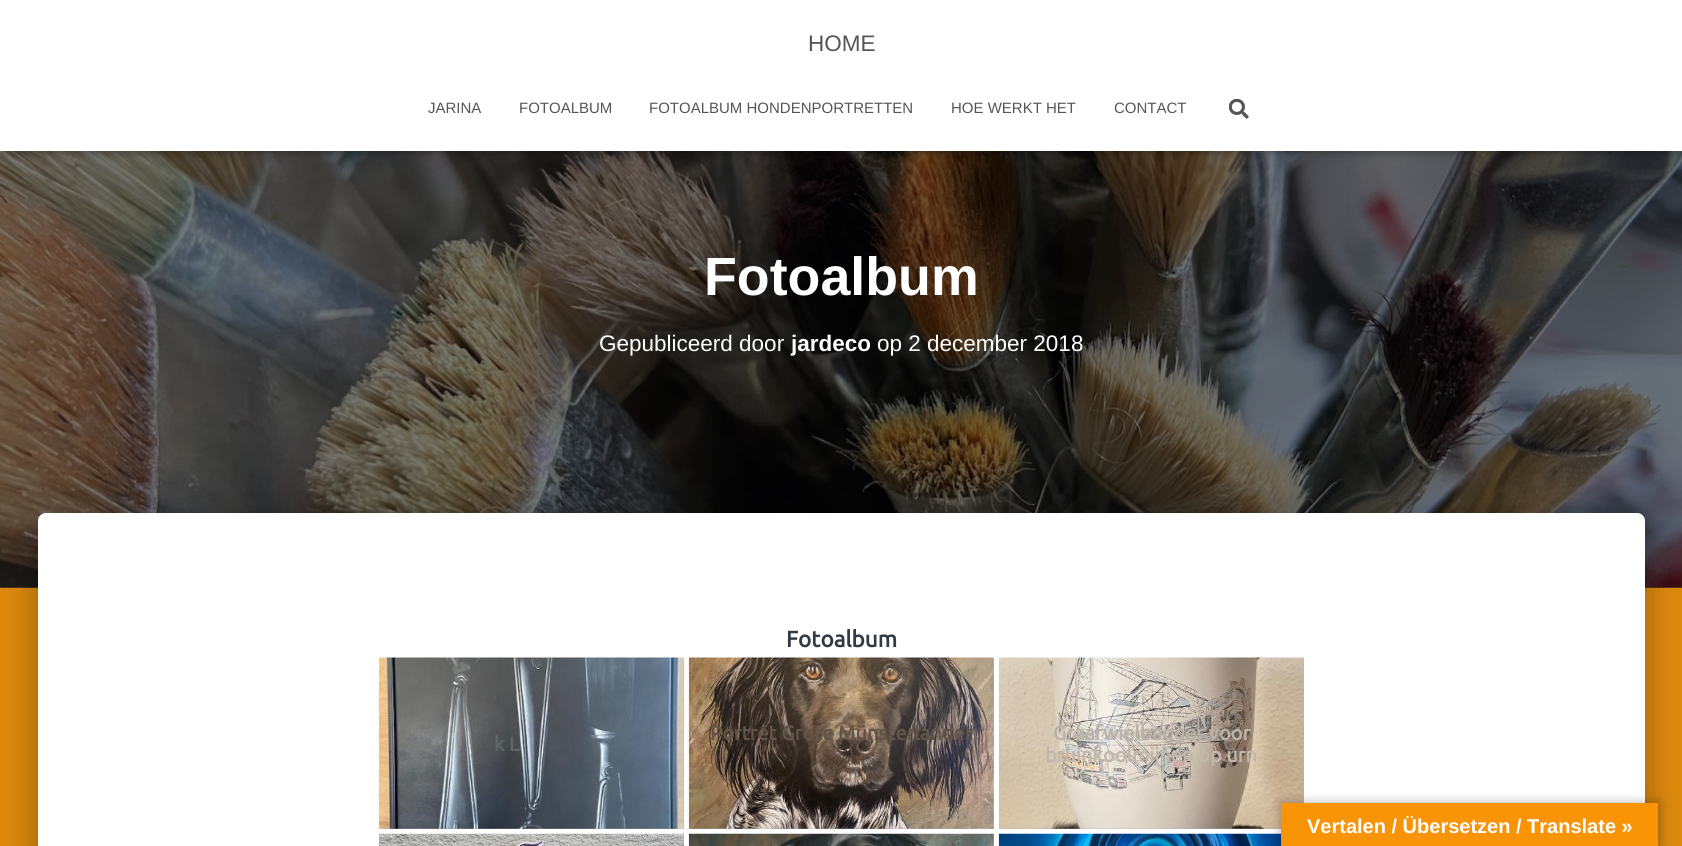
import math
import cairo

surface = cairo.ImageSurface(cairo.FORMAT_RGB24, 1682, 846)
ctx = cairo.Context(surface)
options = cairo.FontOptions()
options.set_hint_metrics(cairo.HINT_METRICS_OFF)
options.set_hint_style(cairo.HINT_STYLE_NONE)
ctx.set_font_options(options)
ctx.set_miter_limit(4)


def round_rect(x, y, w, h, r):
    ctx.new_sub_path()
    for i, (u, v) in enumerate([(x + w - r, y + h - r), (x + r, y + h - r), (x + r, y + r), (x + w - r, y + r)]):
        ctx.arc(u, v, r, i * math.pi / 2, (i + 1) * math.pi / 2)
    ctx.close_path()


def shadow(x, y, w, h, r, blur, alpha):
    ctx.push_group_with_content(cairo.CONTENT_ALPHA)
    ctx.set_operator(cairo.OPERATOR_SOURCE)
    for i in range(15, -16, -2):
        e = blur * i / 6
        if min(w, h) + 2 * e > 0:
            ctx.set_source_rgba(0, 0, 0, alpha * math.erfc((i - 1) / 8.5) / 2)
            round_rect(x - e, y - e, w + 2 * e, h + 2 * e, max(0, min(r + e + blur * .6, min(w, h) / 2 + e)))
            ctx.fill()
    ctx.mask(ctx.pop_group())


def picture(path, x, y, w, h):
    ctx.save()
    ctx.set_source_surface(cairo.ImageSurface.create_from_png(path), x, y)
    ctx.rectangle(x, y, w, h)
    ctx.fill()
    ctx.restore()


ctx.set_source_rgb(0.867, 0.541, 0.051)
ctx.paint()
ctx.set_source_rgb(0.435, 0.271, 0.027)
ctx.rectangle(0, 587, 1682, 1)
ctx.fill()
picture("img2.png", 0, 151, 1682, 437)
ctx.set_source_rgb(0, 0, 0)
shadow(3, 8, 1677, 146, 0, 3, 0.1)
shadow(0, 1, 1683, 152, 0, 6, 0.12)
shadow(8, 9, 1667, 136, 0, 6, 0.42)
ctx.set_source_rgb(1, 1, 1)
ctx.rectangle(0, 0, 1682, 151)
ctx.fill()
ctx.select_font_face("Liberation Sans")
ctx.set_font_size(22.5)
ctx.set_source_rgb(0.333, 0.333, 0.333)
ctx.move_to(808, 51)
ctx.show_text("HOME")
ctx.set_font_size(15)
ctx.move_to(428, 113)
ctx.show_text("JARINA")
ctx.move_to(519, 113)
ctx.show_text("FOTOALBUM")
ctx.move_to(649, 113)
ctx.show_text("FOTOALBUM HONDENPORTRETTEN")
ctx.move_to(951, 113)
ctx.show_text("HOE WERKT HET")
ctx.move_to(1114, 113)
ctx.show_text("CONTACT")
picture("img1.png", 1229, 99, 20, 20)
ctx.select_font_face("Liberation Sans", cairo.FONT_SLANT_NORMAL, cairo.FONT_WEIGHT_BOLD)
ctx.set_font_size(53.75)
ctx.set_source_rgb(1, 1, 1)
ctx.move_to(704, 295)
ctx.show_text("Fotoalbum")
ctx.select_font_face("Liberation Sans")
ctx.set_font_size(22.5)
ctx.move_to(599, 351)
ctx.show_text("Gepubliceerd door")
ctx.select_font_face("Liberation Sans", cairo.FONT_SLANT_NORMAL, cairo.FONT_WEIGHT_BOLD)
ctx.move_to(791, 351)
ctx.show_text("jardeco")
ctx.select_font_face("Liberation Sans")
ctx.move_to(877, 351)
ctx.show_text("op 2 december 2018")
ctx.set_source_rgb(0, 0, 0)
shadow(44, 529, 1595, 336, 1, 6, 0.2)
shadow(31, 514, 1620, 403, 14, 19, 0.12)
shadow(35, 530, 1613, 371, 10, 15, 0.14)
ctx.set_source_rgb(1, 1, 1)
ctx.new_path()
ctx.move_to(46, 513)
ctx.line_to(1637, 513)
ctx.curve_to(1641.5, 513, 1645, 516.5, 1645, 521)
ctx.line_to(1645, 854)
ctx.line_to(38, 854)
ctx.line_to(38, 521)
ctx.curve_to(38, 516.5, 41.5, 513, 46, 513)
ctx.close_path()
ctx.fill()
ctx.select_font_face("Ubuntu", cairo.FONT_SLANT_NORMAL, cairo.FONT_WEIGHT_BOLD)
ctx.set_source_rgb(0.196, 0.227, 0.271)
ctx.move_to(786, 647)
ctx.show_text("Fotoalbum")
ctx.set_source_rgb(0.702, 0.702, 0.702)
ctx.rectangle(379, 658, 305, 171)
ctx.fill()
picture("img3.png", 378, 657, 306, 172)
ctx.set_font_size(20)
ctx.set_source_rgb(0.369, 0.396, 0.424)
ctx.move_to(494, 751)
ctx.show_text("k L")
ctx.set_source_rgb(0.702, 0.702, 0.702)
ctx.rectangle(689, 658, 305, 171)
ctx.fill()
picture("img4.png", 688, 657, 306, 172)
ctx.set_source_rgb(0.384, 0.329, 0.286)
ctx.move_to(710, 740)
ctx.show_text("Portret Grote Münsterlander")
ctx.set_source_rgb(0.702, 0.702, 0.702)
ctx.rectangle(999, 658, 305, 171)
ctx.fill()
picture("img5.png", 998, 657, 306, 172)
ctx.set_source_rgb(0.725, 0.698, 0.659)
ctx.move_to(1053, 740)
ctx.show_text("Graafwielbagger voor")
ctx.set_source_rgb(0.757, 0.718, 0.667)
ctx.move_to(1045, 762)
ctx.show_text("bruinkoolmijnen op urn")
ctx.set_source_rgb(0.702, 0.702, 0.702)
ctx.rectangle(683, 834, 1, 12)
ctx.fill()
picture("img6.png", 378, 833, 306, 13)
ctx.rectangle(993, 834, 1, 12)
ctx.fill()
picture("img7.png", 688, 833, 306, 13)
picture("img8.png", 998, 833, 283, 13)
ctx.set_source_rgb(0, 0, 0)
shadow(1281, 803, 377, 43, 0, 5.5, 0.3)
ctx.set_source_rgb(0.973, 0.58, 0.024)
ctx.rectangle(1281, 803, 377, 43)
ctx.fill()
ctx.select_font_face("Liberation Sans", cairo.FONT_SLANT_NORMAL, cairo.FONT_WEIGHT_BOLD)
ctx.set_source_rgb(1, 1, 1)
ctx.move_to(1307, 833)
ctx.show_text("Vertalen / Übersetzen / Translate »")
surface.write_to_png("page.png")
